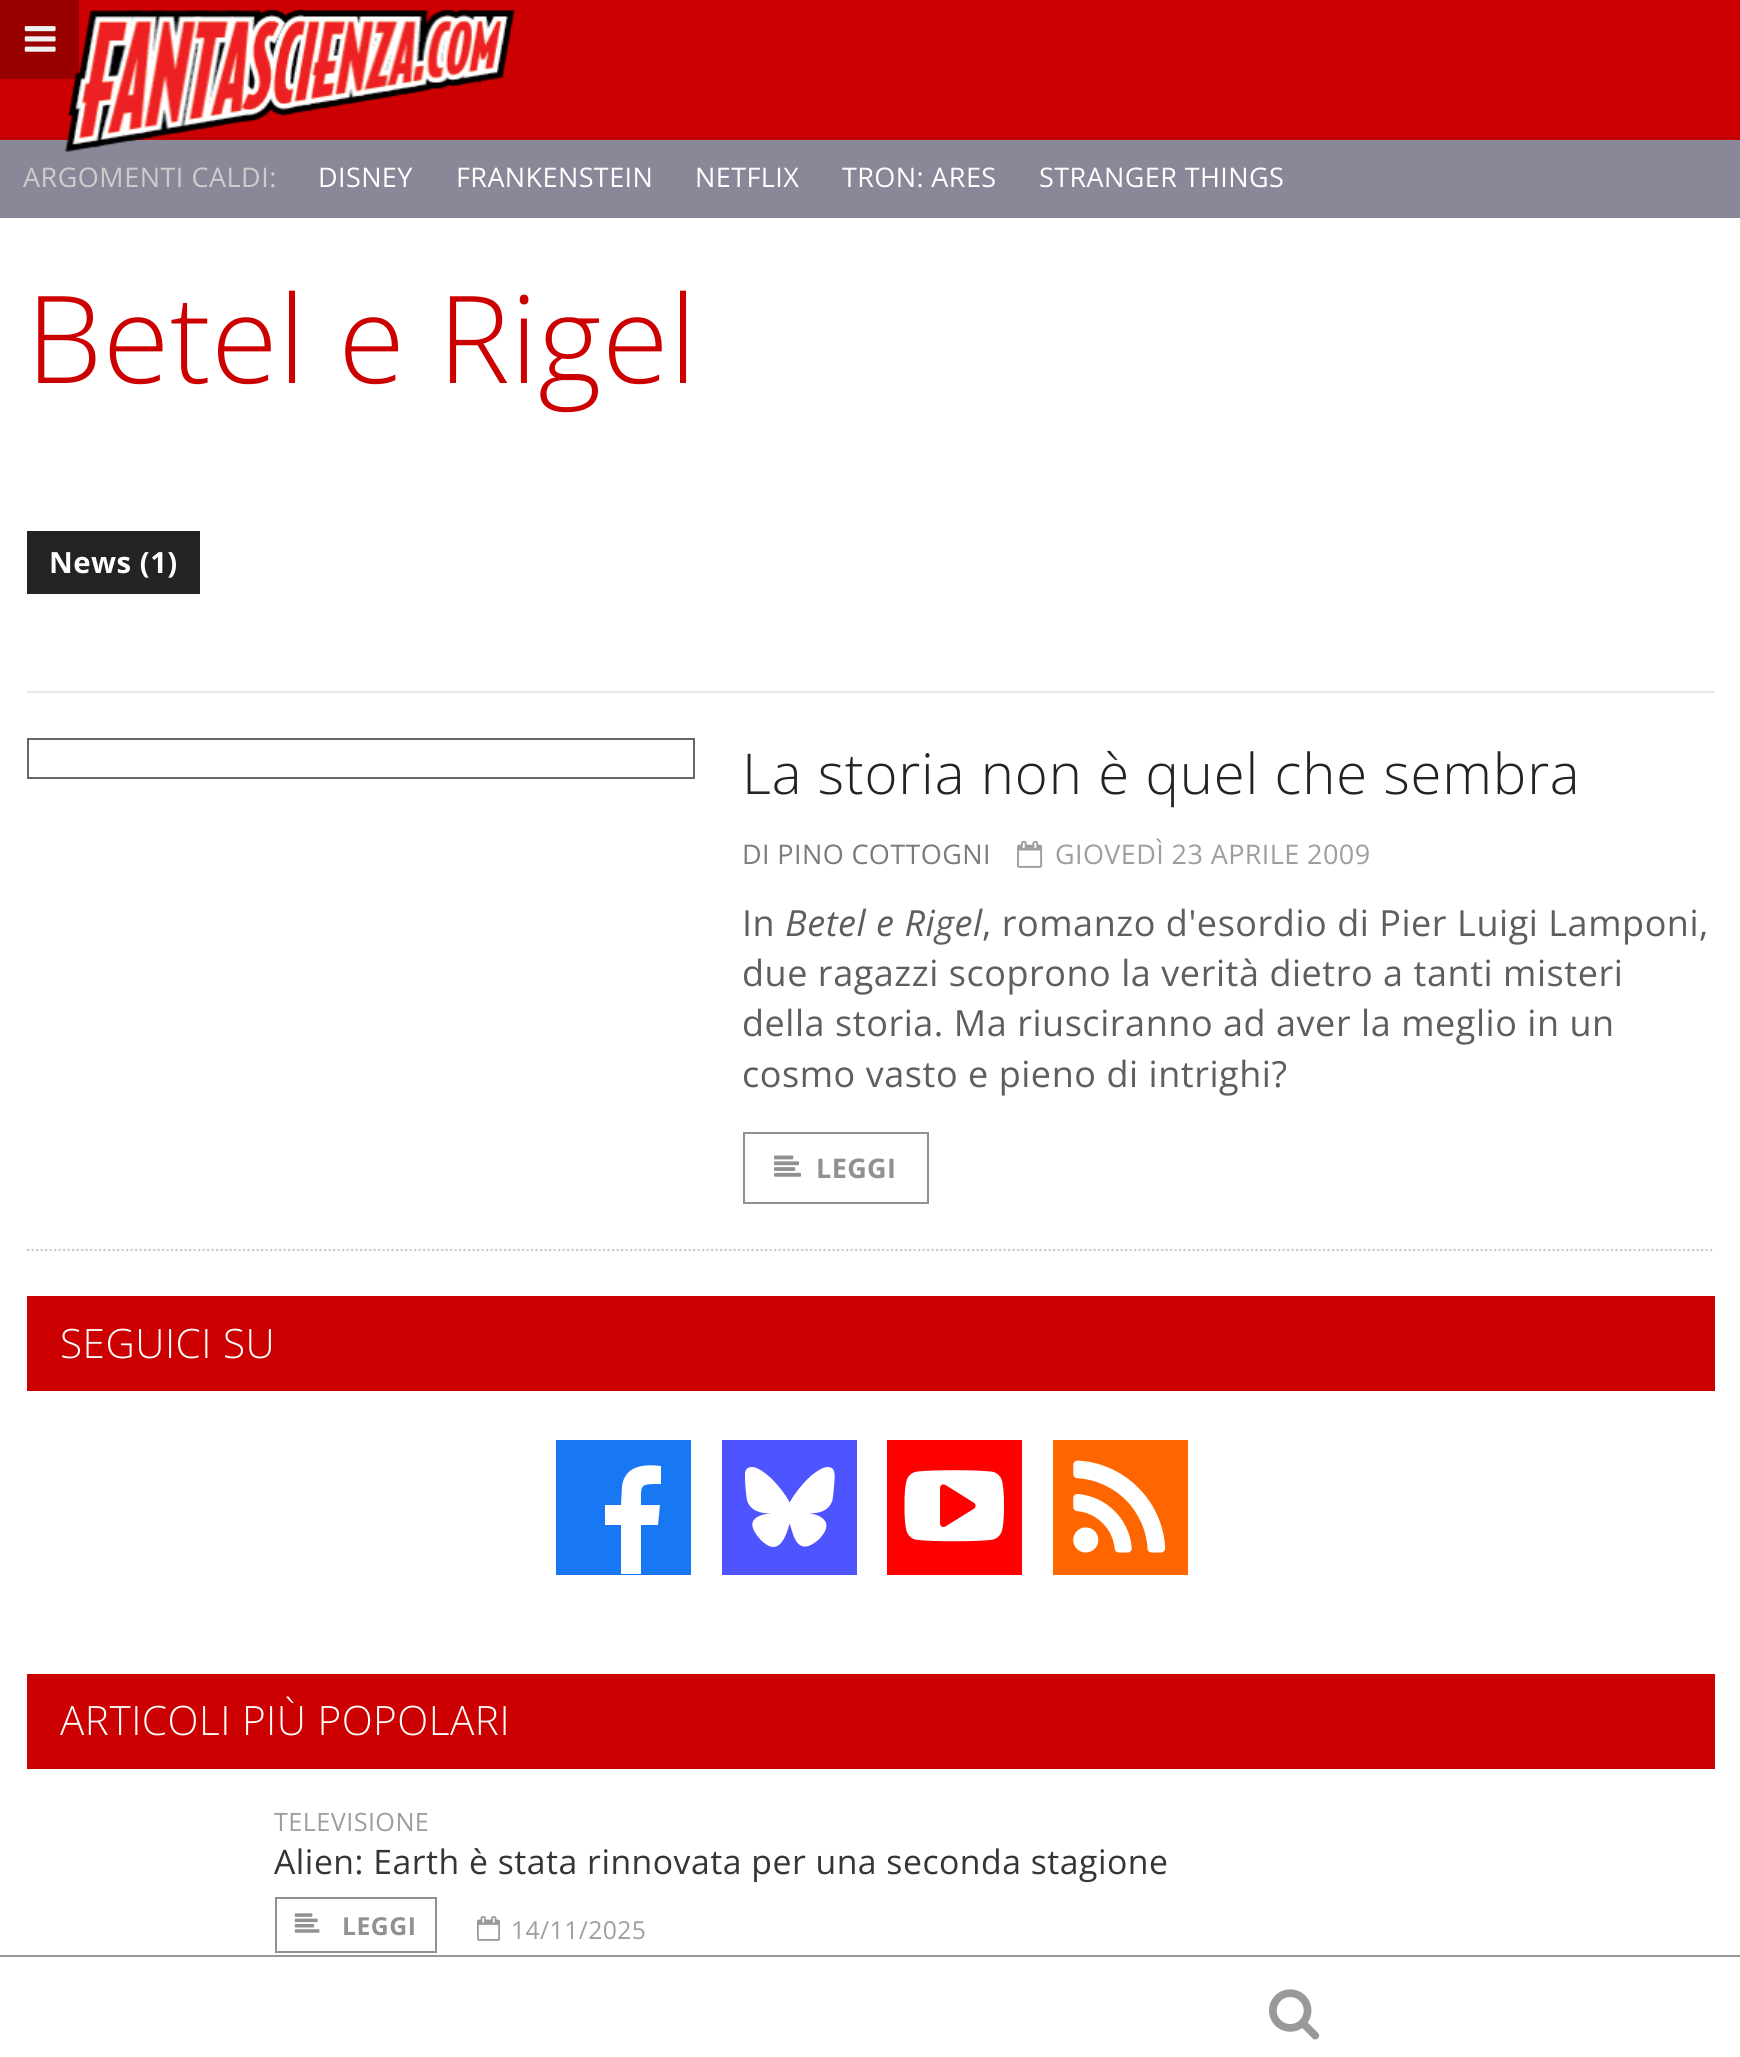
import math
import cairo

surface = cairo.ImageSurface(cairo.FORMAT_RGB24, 1740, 2057)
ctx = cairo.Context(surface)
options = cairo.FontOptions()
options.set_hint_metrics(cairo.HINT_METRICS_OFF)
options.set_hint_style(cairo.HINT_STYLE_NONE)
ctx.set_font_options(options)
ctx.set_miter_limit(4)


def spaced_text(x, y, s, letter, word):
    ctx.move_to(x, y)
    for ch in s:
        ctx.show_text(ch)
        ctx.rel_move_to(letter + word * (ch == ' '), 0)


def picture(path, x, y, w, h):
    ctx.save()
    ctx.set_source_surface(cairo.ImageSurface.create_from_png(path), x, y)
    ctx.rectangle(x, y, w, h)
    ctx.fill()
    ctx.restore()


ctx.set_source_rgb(0.8, 0, 0)
ctx.paint()
ctx.set_source_rgb(0.6, 0, 0)
ctx.rectangle(0, 0, 79, 79)
ctx.fill()
picture("img1.png", 24, 26, 32, 26)
ctx.rectangle(-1, 138, 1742, 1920)
ctx.set_source_rgb(0.737, 0, 0)
ctx.stroke()
ctx.set_source_rgb(0.533, 0.533, 0.6)
ctx.rectangle(0, 140, 1740, 78)
ctx.fill()
picture("img2.png", 65, 9, 451, 143)
ctx.set_source_rgb(1, 1, 1)
ctx.rectangle(0, 218, 1740, 1737)
ctx.fill()
ctx.select_font_face("Open Sans")
ctx.set_font_size(27)
ctx.set_source_rgb(0.8, 0.8, 0.8)
spaced_text(23, 187, "ARGOMENTI CALDI:", 0.5, 0)
ctx.set_source_rgb(1, 1, 1)
spaced_text(318, 187, "DISNEY", 0.4, 0)
spaced_text(456, 187, "FRANKENSTEIN", 0.4, 0)
spaced_text(695, 187, "NETFLIX", 0.4, 0)
spaced_text(842, 187, "TRON: ARES", 0.4, 0)
spaced_text(1039, 187, "STRANGER THINGS", 0.4, 0)
ctx.rectangle(0, 1957, 1740, 100)
ctx.fill()
ctx.set_source_rgb(0.6, 0.6, 0.6)
ctx.rectangle(0, 1955, 1740, 2)
ctx.fill()
picture("img3.png", 1269, 1989, 51, 51)
ctx.set_source_rgb(0.91, 0.91, 0.91)
ctx.rectangle(27, 691, 1688, 2)
ctx.fill()
ctx.select_font_face("Open Sans Light")
ctx.set_font_size(121.5)
ctx.set_source_rgb(0.8, 0, 0)
spaced_text(26, 383, "Betel e Rigel", 0.5, 0)
ctx.set_source_rgb(0.137, 0.137, 0.137)
ctx.rectangle(27, 531, 173, 63)
ctx.fill()
ctx.select_font_face("Open Sans", cairo.FONT_SLANT_NORMAL, cairo.FONT_WEIGHT_BOLD)
ctx.set_font_size(29.25)
ctx.set_source_rgb(1, 1, 1)
spaced_text(49, 573, "News (1)", 0.5, 0)
ctx.new_path()
ctx.move_to(27, 1250)
ctx.line_to(1714.5, 1250)
ctx.set_source_rgb(0.8, 0.8, 0.8)
ctx.set_line_width(2.2)
ctx.set_dash([2.25, 2.25])
ctx.stroke()
ctx.rectangle(28, 739, 666, 39)
ctx.set_source_rgb(0.4, 0.4, 0.4)
ctx.set_line_width(2)
ctx.set_dash([])
ctx.stroke()
ctx.select_font_face("Open Sans Light")
ctx.set_font_size(56.25)
ctx.set_source_rgb(0.137, 0.137, 0.137)
spaced_text(742, 794, "La storia non è quel che sembra", 0.85, 0)
ctx.select_font_face("Open Sans")
ctx.set_font_size(27)
ctx.set_source_rgb(0.482, 0.482, 0.482)
spaced_text(742, 864, "DI PINO COTTOGNI", 0.4, 0)
picture("img4.png", 1017, 840, 26, 28)
ctx.set_source_rgb(0.62, 0.62, 0.62)
spaced_text(1055, 864, "GIOVEDÌ 23 APRILE 2009", 0.4, 0)
ctx.set_font_size(36)
ctx.set_source_rgb(0.369, 0.369, 0.369)
spaced_text(742, 936, "In", 0.55, 0)
ctx.select_font_face("Open Sans", cairo.FONT_SLANT_ITALIC)
spaced_text(785, 936, "Betel e Rigel", 0.55, 0)
ctx.select_font_face("Open Sans")
spaced_text(982, 936, ", romanzo d'esordio di Pier Luigi Lamponi,", 0.55, 0)
spaced_text(742, 986, "due ragazzi scoprono la verità dietro a tanti misteri", 0.55, 0)
spaced_text(742, 1036, "della storia. Ma riusciranno ad aver la meglio in un", 0.55, 0)
spaced_text(742, 1087, "cosmo vasto e pieno di intrighi?", 0.55, 0)
ctx.rectangle(744, 1133, 184, 70)
ctx.set_source_rgb(0.569, 0.569, 0.569)
ctx.stroke()
picture("img5.png", 774, 1155, 27, 22)
ctx.select_font_face("Open Sans", cairo.FONT_SLANT_NORMAL, cairo.FONT_WEIGHT_BOLD)
ctx.set_font_size(27)
spaced_text(816, 1178, "LEGGI", 0.4, 0)
ctx.set_source_rgb(0.8, 0, 0)
ctx.rectangle(27, 1296, 1688, 95)
ctx.fill()
ctx.select_font_face("Open Sans Light")
ctx.set_font_size(40.5)
ctx.set_source_rgb(1, 1, 1)
spaced_text(60, 1358, "SEGUICI SU", 0.5, 0)
ctx.set_source_rgb(0.094, 0.467, 0.949)
ctx.rectangle(556, 1440, 135, 135)
ctx.fill()
ctx.set_source_rgb(1, 1, 1)
ctx.new_path()
ctx.move_to(661, 1466)
ctx.line_to(661, 1484)
ctx.curve_to(639, 1484, 641, 1484, 641, 1505)
ctx.line_to(660, 1505)
ctx.line_to(658, 1525)
ctx.line_to(641, 1525)
ctx.line_to(641, 1574)
ctx.line_to(621, 1574)
ctx.line_to(621, 1525)
ctx.line_to(605, 1525)
ctx.line_to(605, 1505)
ctx.line_to(621, 1505)
ctx.line_to(622, 1486)
ctx.curve_to(625, 1465, 645, 1464, 661, 1466)
ctx.close_path()
ctx.fill()
ctx.set_source_rgb(0.306, 0.329, 1)
ctx.rectangle(722, 1440, 135, 135)
ctx.fill()
picture("img6.png", 745, 1467, 90, 80)
ctx.set_source_rgb(1, 0, 0)
ctx.rectangle(887, 1440, 135, 135)
ctx.fill()
picture("img7.png", 904, 1470, 100, 72)
ctx.set_source_rgb(1, 0.4, 0)
ctx.rectangle(1053, 1440, 135, 135)
ctx.fill()
picture("img8.png", 1073, 1460, 93, 93)
ctx.set_source_rgb(0.8, 0, 0)
ctx.rectangle(27, 1674, 1688, 95)
ctx.fill()
ctx.set_source_rgb(1, 1, 1)
spaced_text(60, 1735, "ARTICOLI PIÙ POPOLARI", 0.5, 0)
ctx.select_font_face("Open Sans")
ctx.set_font_size(25.25)
ctx.set_source_rgb(0.62, 0.62, 0.62)
spaced_text(274, 1831, "TELEVISIONE", 0.4, 0)
ctx.set_font_size(33.75)
ctx.set_source_rgb(0.208, 0.208, 0.208)
spaced_text(274, 1874, "Alien: Earth è stata rinnovata per una seconda stagione", 0.5, 0)
ctx.rectangle(276, 1898, 160, 54)
ctx.set_source_rgb(0.569, 0.569, 0.569)
ctx.stroke()
picture("img9.png", 294, 1913, 26, 20)
ctx.select_font_face("Open Sans", cairo.FONT_SLANT_NORMAL, cairo.FONT_WEIGHT_BOLD)
ctx.set_font_size(24.75)
spaced_text(342, 1935, "LEGGI", 0.5, 0)
picture("img10.png", 477, 1916, 23, 25)
ctx.select_font_face("Open Sans")
ctx.set_source_rgb(0.62, 0.62, 0.62)
spaced_text(511, 1939, "14/11/2025", 0.4, 0)
surface.write_to_png("page.png")
